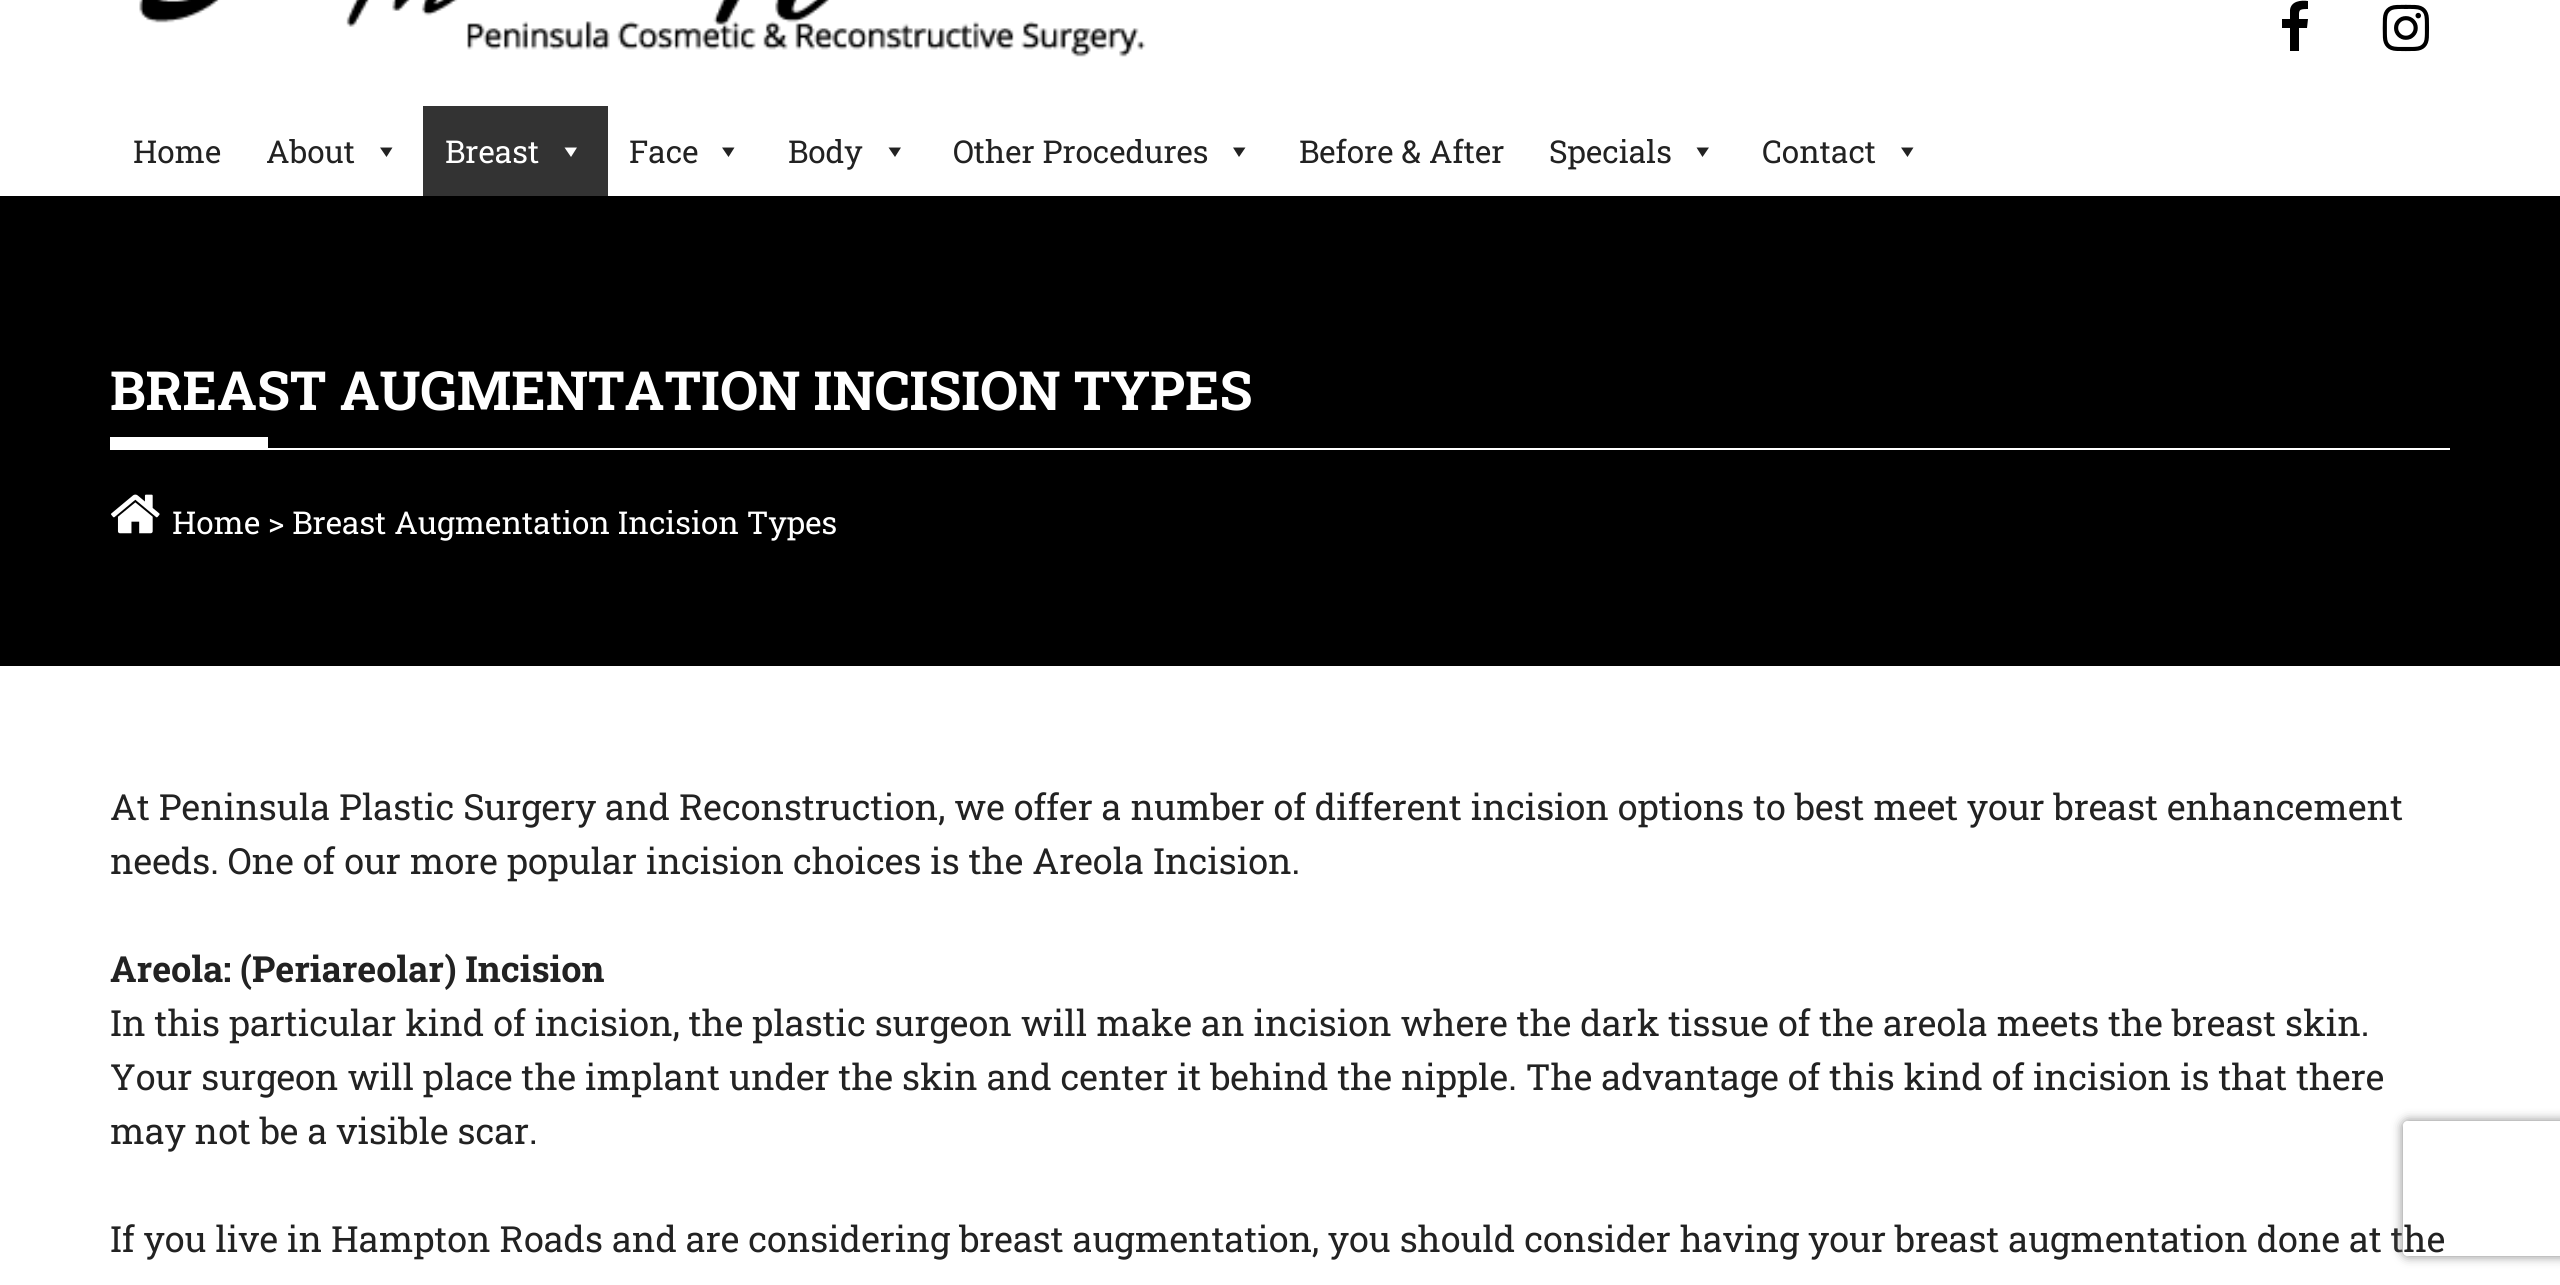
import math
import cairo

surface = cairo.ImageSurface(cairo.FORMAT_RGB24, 2560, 1285)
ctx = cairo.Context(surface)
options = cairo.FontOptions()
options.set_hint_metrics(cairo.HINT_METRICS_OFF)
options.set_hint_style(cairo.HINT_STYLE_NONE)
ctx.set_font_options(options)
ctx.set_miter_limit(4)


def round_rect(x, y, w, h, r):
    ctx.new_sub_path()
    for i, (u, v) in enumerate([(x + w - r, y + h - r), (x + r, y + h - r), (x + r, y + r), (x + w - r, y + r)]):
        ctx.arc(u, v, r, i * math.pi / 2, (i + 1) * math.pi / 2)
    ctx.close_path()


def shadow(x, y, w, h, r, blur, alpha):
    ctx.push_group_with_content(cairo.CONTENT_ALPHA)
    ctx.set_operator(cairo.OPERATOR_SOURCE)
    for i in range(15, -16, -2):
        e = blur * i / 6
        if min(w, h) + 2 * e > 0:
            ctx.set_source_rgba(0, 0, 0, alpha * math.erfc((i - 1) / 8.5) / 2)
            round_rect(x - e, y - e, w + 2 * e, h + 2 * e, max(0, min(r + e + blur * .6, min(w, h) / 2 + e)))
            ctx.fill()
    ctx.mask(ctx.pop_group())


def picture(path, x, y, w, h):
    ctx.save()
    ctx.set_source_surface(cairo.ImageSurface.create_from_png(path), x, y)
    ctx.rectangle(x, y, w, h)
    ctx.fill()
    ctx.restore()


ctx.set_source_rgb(1, 1, 1)
ctx.paint()
picture("img1.png", 139, 0, 1007, 57)
ctx.set_source_rgb(0, 0, 0)
ctx.new_path()
ctx.move_to(2308, 1)
ctx.line_to(2308, 9)
ctx.curve_to(2298, 9, 2299, 10, 2299, 19)
ctx.line_to(2308, 19)
ctx.line_to(2307, 28)
ctx.line_to(2299, 28)
ctx.line_to(2299, 51)
ctx.line_to(2290, 51)
ctx.line_to(2290, 28)
ctx.line_to(2282, 28)
ctx.line_to(2282, 19)
ctx.line_to(2290, 19)
ctx.line_to(2290, 10)
ctx.curve_to(2291, 1, 2301, 0, 2308, 1)
ctx.close_path()
ctx.fill()
picture("img2.png", 2382, 4, 48, 48)
ctx.select_font_face("Roboto Slab")
ctx.set_font_size(31.5)
ctx.set_source_rgb(0.133, 0.133, 0.133)
ctx.move_to(133, 163)
ctx.show_text("Home")
ctx.move_to(266, 163)
ctx.show_text("About")
ctx.new_path()
ctx.move_to(392.5, 147.5)
ctx.line_to(386.5, 157)
ctx.line_to(380, 147.5)
ctx.close_path()
ctx.fill()
ctx.set_source_rgb(0.2, 0.2, 0.2)
ctx.rectangle(423, 106, 185, 90)
ctx.fill()
ctx.set_source_rgb(1, 1, 1)
ctx.move_to(445, 163)
ctx.show_text("Breast")
ctx.new_path()
ctx.move_to(577, 147.5)
ctx.line_to(571, 157)
ctx.line_to(564.5, 147.5)
ctx.close_path()
ctx.fill()
ctx.set_source_rgb(0.133, 0.133, 0.133)
ctx.move_to(629, 163)
ctx.show_text("Face")
ctx.new_path()
ctx.move_to(734.5, 147.5)
ctx.line_to(728.5, 157)
ctx.line_to(722, 147.5)
ctx.close_path()
ctx.fill()
ctx.move_to(788, 163)
ctx.show_text("Body")
ctx.new_path()
ctx.move_to(901, 147.5)
ctx.line_to(895, 157)
ctx.line_to(888.5, 147.5)
ctx.close_path()
ctx.fill()
ctx.move_to(953, 163)
ctx.show_text("Other Procedures")
ctx.new_path()
ctx.move_to(1245.5, 147.5)
ctx.line_to(1239, 157)
ctx.line_to(1233, 147.5)
ctx.close_path()
ctx.fill()
ctx.move_to(1299, 163)
ctx.show_text("Before & After")
ctx.move_to(1549, 163)
ctx.show_text("Specials")
ctx.new_path()
ctx.move_to(1709, 147.5)
ctx.line_to(1702.5, 157)
ctx.line_to(1696.5, 147.5)
ctx.close_path()
ctx.fill()
ctx.move_to(1762, 163)
ctx.show_text("Contact")
ctx.new_path()
ctx.move_to(1913.5, 147.5)
ctx.line_to(1907.5, 157)
ctx.line_to(1901, 147.5)
ctx.close_path()
ctx.fill()
ctx.set_source_rgb(0, 0, 0)
ctx.rectangle(0, 196, 2560, 470)
ctx.fill()
ctx.set_source_rgb(1, 1, 1)
ctx.rectangle(110, 448, 2340, 2)
ctx.fill()
ctx.select_font_face("Roboto Slab", cairo.FONT_SLANT_NORMAL, cairo.FONT_WEIGHT_BOLD)
ctx.set_font_size(54)
ctx.move_to(110, 410)
ctx.show_text("BREAST AUGMENTATION INCISION TYPES")
ctx.rectangle(110, 437, 158, 11)
ctx.fill()
picture("img3.png", 111, 494, 49, 40)
ctx.select_font_face("Roboto Slab")
ctx.set_font_size(31.5)
ctx.move_to(172, 534)
ctx.show_text("Home > Breast Augmentation Incision Types")
ctx.set_font_size(36)
ctx.set_source_rgb(0.133, 0.133, 0.133)
ctx.move_to(110, 820)
ctx.show_text("At Peninsula Plastic Surgery and Reconstruction, we offer a number of different incision options to best meet your breast enhancement")
ctx.move_to(110, 874)
ctx.show_text("needs. One of our more popular incision choices is the Areola Incision.")
ctx.select_font_face("Roboto Slab", cairo.FONT_SLANT_NORMAL, cairo.FONT_WEIGHT_BOLD)
ctx.move_to(110, 982)
ctx.show_text("Areola: (Periareolar) Incision")
ctx.select_font_face("Roboto Slab")
ctx.move_to(110, 1036)
ctx.show_text("In this particular kind of incision, the plastic surgeon will make an incision where the dark tissue of the areola meets the breast skin.")
ctx.move_to(110, 1090)
ctx.show_text("Your surgeon will place the implant under the skin and center it behind the nipple. The advantage of this kind of incision is that there")
ctx.move_to(110, 1144)
ctx.show_text("may not be a visible scar.")
ctx.move_to(110, 1252)
ctx.show_text("If you live in Hampton Roads and are considering breast augmentation, you should consider having your breast augmentation done at the")
ctx.save()
ctx.set_fill_rule(cairo.FILL_RULE_EVEN_ODD)
ctx.new_path()
ctx.move_to(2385, 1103)
ctx.line_to(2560, 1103)
ctx.line_to(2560, 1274)
ctx.line_to(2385, 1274)
ctx.close_path()
ctx.move_to(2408, 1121)
ctx.line_to(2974, 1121)
ctx.curve_to(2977, 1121, 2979, 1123, 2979, 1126)
ctx.line_to(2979, 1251)
ctx.curve_to(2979, 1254, 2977, 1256, 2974, 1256)
ctx.line_to(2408, 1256)
ctx.curve_to(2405, 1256, 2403, 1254, 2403, 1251)
ctx.line_to(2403, 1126)
ctx.curve_to(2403, 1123, 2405, 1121, 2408, 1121)
ctx.close_path()
ctx.clip()
ctx.set_source_rgb(0.502, 0.502, 0.502)
shadow(2403, 1121, 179, 135, 5, 5.5, 1)
ctx.restore()
surface.write_to_png("page.png")
